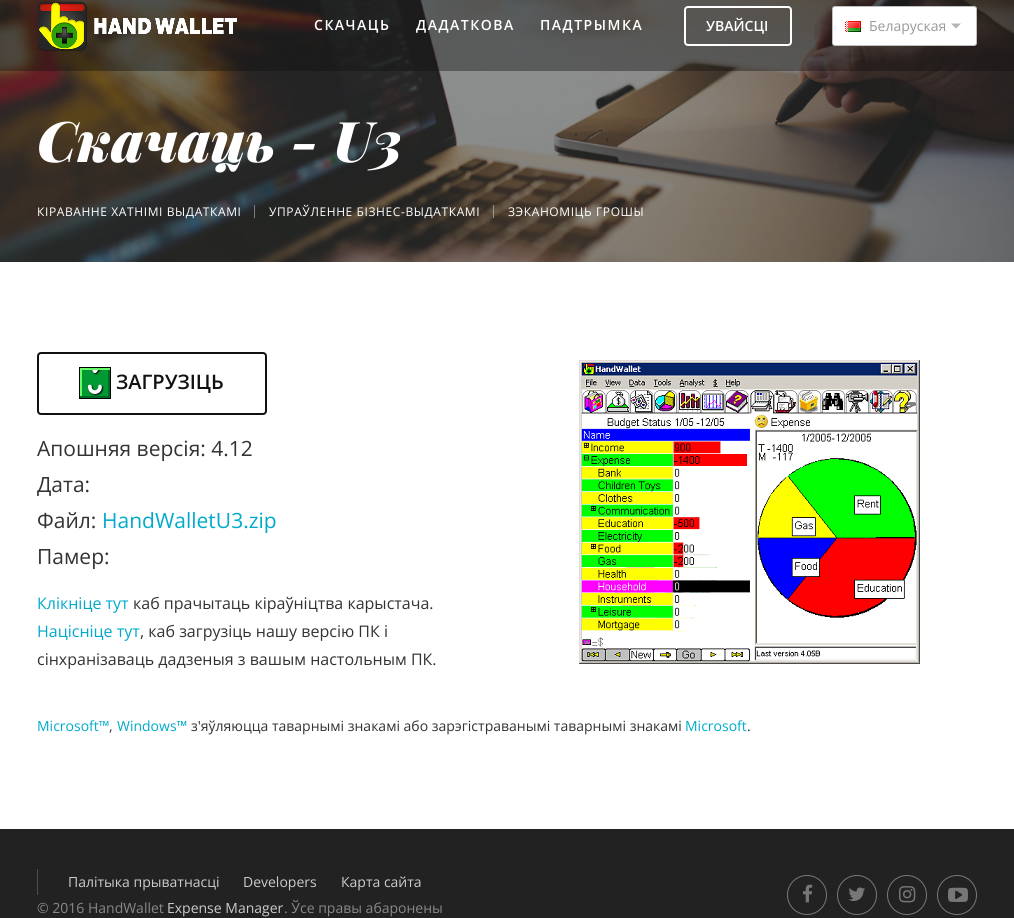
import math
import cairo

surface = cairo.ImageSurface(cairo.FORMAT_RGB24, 1014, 918)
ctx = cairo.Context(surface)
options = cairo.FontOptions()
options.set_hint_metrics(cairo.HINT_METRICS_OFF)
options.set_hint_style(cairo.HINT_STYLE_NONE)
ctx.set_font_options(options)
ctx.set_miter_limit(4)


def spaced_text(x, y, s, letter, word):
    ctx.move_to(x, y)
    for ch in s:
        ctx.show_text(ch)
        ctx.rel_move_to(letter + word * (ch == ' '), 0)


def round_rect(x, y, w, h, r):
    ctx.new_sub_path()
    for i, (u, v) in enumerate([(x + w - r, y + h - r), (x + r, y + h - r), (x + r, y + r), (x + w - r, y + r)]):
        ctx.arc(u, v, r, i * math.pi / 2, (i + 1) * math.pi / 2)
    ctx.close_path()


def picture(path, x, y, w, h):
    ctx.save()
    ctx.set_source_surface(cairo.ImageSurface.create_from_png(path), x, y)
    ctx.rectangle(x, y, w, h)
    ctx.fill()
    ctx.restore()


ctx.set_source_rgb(1, 1, 1)
ctx.paint()
ctx.set_source_rgb(0.067, 0.067, 0.067)
ctx.rectangle(0, 0, 1014, 262)
ctx.fill()
picture("img3.png", 0, 0, 1014, 262)
ctx.set_source_rgba(0.067, 0.067, 0.067, 0.4)
ctx.rectangle(0, 0, 1014, 71)
ctx.fill()
picture("img1.png", 38, 1, 199, 50)
ctx.select_font_face("Open Sans SemiBold")
ctx.set_font_size(14)
ctx.set_source_rgb(1, 1, 1)
spaced_text(314, 30, "СКАЧАЦЬ", 1.5, 0)
ctx.save()
ctx.rectangle(416, 0, 99, 71)
ctx.clip()
spaced_text(416, 30, "ДАДАТКОВА", 1.5, 0)
ctx.restore()
spaced_text(540, 30, "ПАДТРЫМКА", 1.5, 0)
round_rect(685, 7, 106, 38, 3)
ctx.stroke()
ctx.move_to(706, 31)
ctx.show_text("УВАЙСЦІ")
round_rect(832, 6, 145, 40, 3)
ctx.fill()
round_rect(832.5, 6.5, 144, 39, 2.5)
ctx.set_source_rgba(0, 0, 0, 0.25)
ctx.set_line_width(1)
ctx.stroke()
picture("img2.png", 845, 21, 16, 11)
ctx.select_font_face("Open Sans")
ctx.set_source_rgb(0.6, 0.6, 0.6)
ctx.move_to(869, 31)
ctx.show_text("Беларуская")
ctx.set_source_rgb(0.702, 0.702, 0.702)
ctx.new_path()
ctx.move_to(951, 23.5)
ctx.line_to(961, 23.5)
ctx.line_to(956, 28.5)
ctx.close_path()
ctx.fill()
ctx.select_font_face("Playfair Display Black", cairo.FONT_SLANT_ITALIC)
ctx.set_font_size(56)
ctx.set_source_rgb(1, 1, 1)
ctx.move_to(37, 162)
ctx.show_text("Скачаць - U3")
ctx.select_font_face("Open Sans")
ctx.set_font_size(12)
spaced_text(37, 216, "КІРАВАННЕ ХАТНІМІ ВЫДАТКАМІ", 0.6, 0)
ctx.set_source_rgba(1, 1, 1, 0.4)
ctx.rectangle(254, 205, 1, 13)
ctx.fill()
ctx.set_source_rgb(1, 1, 1)
spaced_text(269, 216, "УПРАЎЛЕННЕ БІЗНЕС-ВЫДАТКАМІ", 0.6, 0)
ctx.set_source_rgba(1, 1, 1, 0.4)
ctx.rectangle(493, 205, 1, 13)
ctx.fill()
ctx.set_source_rgb(1, 1, 1)
spaced_text(508, 216, "ЗЭКАНОМІЦЬ ГРОШЫ", 0.6, 0)
round_rect(38, 353, 228, 61, 3)
ctx.set_source_rgb(0.067, 0.067, 0.067)
ctx.set_line_width(2)
ctx.stroke()
picture("img4.png", 79, 367, 32, 32)
ctx.select_font_face("Open Sans SemiBold")
ctx.set_font_size(20)
ctx.move_to(116, 389)
ctx.show_text("ЗАГРУЗІЦЬ")
ctx.select_font_face("Open Sans")
ctx.set_font_size(21)
ctx.set_source_rgb(0.2, 0.2, 0.2)
ctx.move_to(37, 456)
ctx.show_text("Апошняя версія: 4.12")
ctx.move_to(37, 492)
ctx.show_text("Дата:")
ctx.move_to(37, 528)
ctx.show_text("Файл:")
ctx.set_source_rgb(0, 0.667, 0.8)
ctx.move_to(102, 528)
ctx.show_text("HandWalletU3.zip")
ctx.set_source_rgb(0.2, 0.2, 0.2)
ctx.move_to(37, 564)
ctx.show_text("Памер:")
ctx.set_font_size(16)
ctx.set_source_rgb(0, 0.667, 0.8)
ctx.move_to(37, 609)
ctx.show_text("Клікніце тут")
ctx.set_source_rgb(0.2, 0.2, 0.2)
ctx.move_to(133, 609)
ctx.show_text("каб прачытаць кіраўніцтва карыстача.")
ctx.set_source_rgb(0, 0.667, 0.8)
ctx.move_to(37, 637)
ctx.show_text("Націсніце тут")
ctx.set_source_rgb(0.2, 0.2, 0.2)
ctx.move_to(140, 637)
ctx.show_text(", каб загрузіць нашу версію ПК і")
ctx.move_to(37, 665)
ctx.show_text("сінхранізаваць дадзеныя з вашым настольным ПК.")
picture("img5.png", 579, 360, 341, 304)
ctx.set_font_size(14)
ctx.set_source_rgb(0, 0.667, 0.8)
ctx.move_to(37, 731)
ctx.show_text("Microsoft™")
ctx.set_source_rgb(0.2, 0.2, 0.2)
ctx.move_to(109, 731)
ctx.show_text(",")
ctx.set_source_rgb(0, 0.667, 0.8)
ctx.move_to(117, 731)
ctx.show_text("Windows™")
ctx.set_source_rgb(0.2, 0.2, 0.2)
ctx.move_to(191, 731)
ctx.show_text("з'яўляюцца таварнымі знакамі або зарэгістраванымі таварнымі знакамі")
ctx.set_source_rgb(0, 0.667, 0.8)
ctx.move_to(685, 731)
ctx.show_text("Microsoft")
ctx.set_source_rgb(0.2, 0.2, 0.2)
ctx.move_to(747, 731)
ctx.show_text(".")
ctx.set_source_rgb(0.133, 0.133, 0.133)
ctx.rectangle(0, 829, 1014, 89)
ctx.fill()
ctx.set_source_rgb(0.306, 0.306, 0.306)
ctx.rectangle(37, 869, 1, 26)
ctx.fill()
ctx.set_source_rgb(0.8, 0.8, 0.8)
ctx.move_to(68, 887)
ctx.show_text("Палітыка прыватнасці")
ctx.move_to(243, 887)
ctx.show_text("Developers")
ctx.move_to(341, 887)
ctx.show_text("Карта сайта")
ctx.set_source_rgb(0.533, 0.533, 0.533)
ctx.move_to(37, 913)
ctx.show_text("© 2016 HandWallet")
ctx.set_source_rgb(0.8, 0.8, 0.8)
ctx.move_to(167, 913)
ctx.show_text("Expense Manager")
ctx.set_source_rgb(0.533, 0.533, 0.533)
ctx.move_to(284, 913)
ctx.show_text(". Ўсе правы абаронены")
ctx.new_path()
ctx.arc(807, 895, 19.5, 0, 2 * math.pi)
ctx.set_source_rgb(0.467, 0.467, 0.467)
ctx.set_line_width(1)
ctx.stroke()
picture("img6.png", 803, 884, 10, 19)
ctx.arc(857, 895, 19.5, 0, 2 * math.pi)
ctx.stroke()
picture("img7.png", 848, 887, 17, 14)
ctx.arc(907, 895, 19.5, 0, 2 * math.pi)
ctx.stroke()
picture("img8.png", 899, 886, 17, 17)
ctx.arc(957, 895, 19.5, 0, 2 * math.pi)
ctx.stroke()
picture("img9.png", 948, 887, 20, 15)
surface.write_to_png("page.png")
